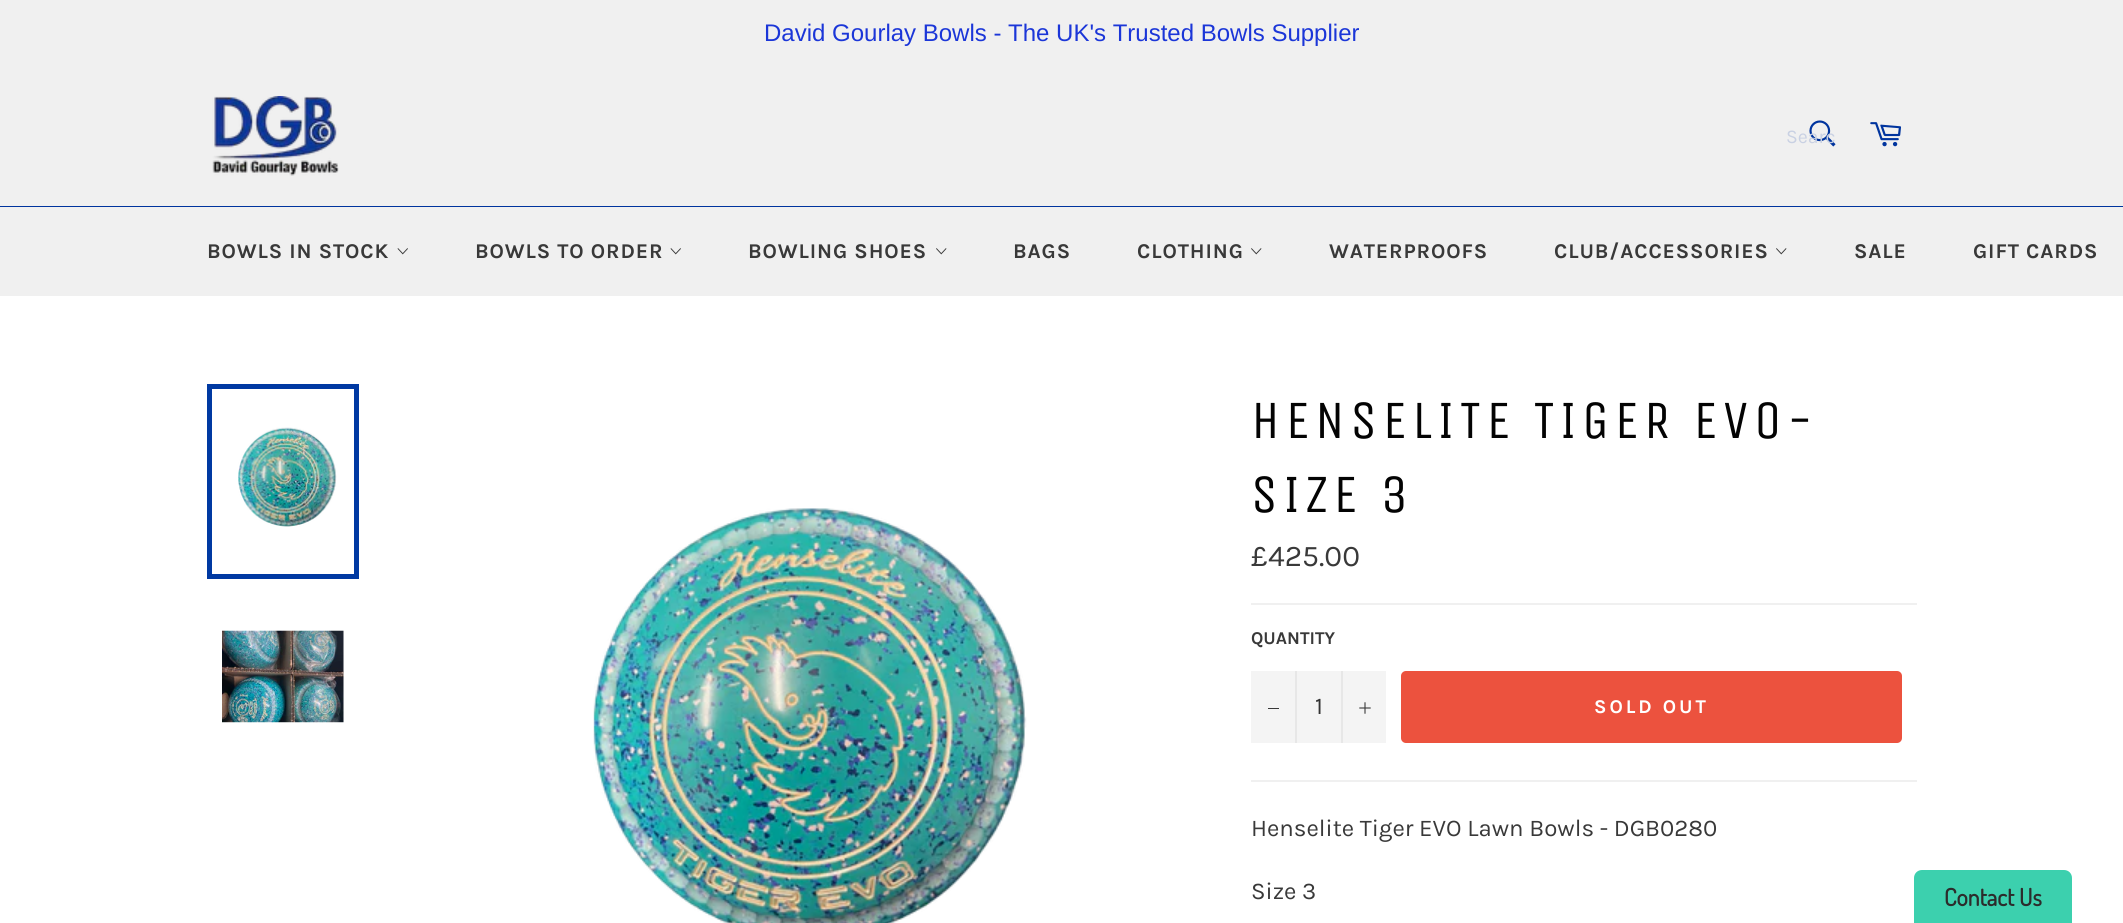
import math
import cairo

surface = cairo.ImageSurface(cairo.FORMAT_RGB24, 2123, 923)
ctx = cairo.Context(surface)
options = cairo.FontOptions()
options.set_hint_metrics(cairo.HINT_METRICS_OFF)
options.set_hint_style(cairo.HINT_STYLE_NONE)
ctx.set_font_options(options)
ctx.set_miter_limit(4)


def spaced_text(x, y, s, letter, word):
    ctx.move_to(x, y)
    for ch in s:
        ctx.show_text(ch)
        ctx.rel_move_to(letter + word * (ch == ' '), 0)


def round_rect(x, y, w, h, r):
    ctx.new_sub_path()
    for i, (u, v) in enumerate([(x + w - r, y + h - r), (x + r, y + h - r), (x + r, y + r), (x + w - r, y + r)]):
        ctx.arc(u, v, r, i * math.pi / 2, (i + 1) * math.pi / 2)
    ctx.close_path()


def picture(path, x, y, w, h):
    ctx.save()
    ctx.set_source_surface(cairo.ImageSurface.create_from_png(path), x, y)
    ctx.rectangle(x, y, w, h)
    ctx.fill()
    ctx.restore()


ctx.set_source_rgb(0.941, 0.941, 0.941)
ctx.paint()
ctx.select_font_face("Liberation Sans")
ctx.set_font_size(24)
ctx.set_source_rgb(0.106, 0.212, 0.847)
ctx.move_to(764, 41)
ctx.show_text("David Gourlay Bowls - The UK's Trusted Bowls Supplier")
picture("img1.png", 212, 96, 127, 80)
picture("img2.png", 1809, 120, 27, 27)
ctx.select_font_face("Karla")
ctx.set_font_size(19.5)
ctx.set_source_rgb(0.788, 0.82, 0.89)
ctx.move_to(1786, 143)
ctx.show_text("Searc")
picture("img3.png", 1870, 122, 31, 25)
ctx.set_source_rgb(0, 0.204, 0.62)
ctx.rectangle(0, 206, 2123, 1)
ctx.fill()
ctx.select_font_face("Karla", cairo.FONT_SLANT_NORMAL, cairo.FONT_WEIGHT_BOLD)
ctx.set_font_size(21)
ctx.set_source_rgb(0.224, 0.224, 0.224)
spaced_text(207, 258, "BOWLS IN STOCK", 0.9, 0)
picture("img4.png", 397, 248, 11, 7)
spaced_text(475, 258, "BOWLS TO ORDER", 0.9, 0)
picture("img4.png", 670, 248, 11, 7)
spaced_text(748, 258, "BOWLING SHOES", 0.9, 0)
picture("img5.png", 936, 248, 11, 7)
spaced_text(1013, 258, "BAGS", 0.9, 0)
spaced_text(1137, 258, "CLOTHING", 0.9, 0)
picture("img5.png", 1251, 248, 11, 7)
spaced_text(1329, 258, "WATERPROOFS", 0.9, 0)
spaced_text(1554, 258, "CLUB/ACCESSORIES", 0.9, 0)
picture("img5.png", 1776, 248, 11, 7)
spaced_text(1854, 258, "SALE", 0.9, 0)
spaced_text(1973, 258, "GIFT CARDS", 0.9, 0)
ctx.set_source_rgb(1, 1, 1)
ctx.rectangle(0, 296, 2123, 627)
ctx.fill()
picture("img6.png", 238, 427, 99, 100)
ctx.rectangle(209.5, 386.5, 147, 190)
ctx.set_source_rgb(0, 0.224, 0.635)
ctx.set_line_width(5)
ctx.stroke()
picture("img7.png", 222, 630, 122, 93)
picture("img8.png", 593, 508, 434, 415)
ctx.select_font_face("Unica One")
ctx.set_font_size(54)
ctx.set_source_rgb(0.012, 0.012, 0.012)
spaced_text(1251, 438, "HENSELITE TIGER EVO-", 5.4, 0)
spaced_text(1251, 512, "SIZE 3", 5.4, 0)
ctx.select_font_face("Karla")
ctx.set_font_size(30)
ctx.set_source_rgb(0.224, 0.224, 0.224)
ctx.move_to(1251, 566)
ctx.show_text("£425.00")
ctx.set_source_rgb(0.941, 0.941, 0.941)
ctx.rectangle(1251, 603, 666, 2)
ctx.fill()
ctx.select_font_face("Karla", cairo.FONT_SLANT_NORMAL, cairo.FONT_WEIGHT_BOLD)
ctx.set_font_size(18)
ctx.set_source_rgb(0.224, 0.224, 0.224)
ctx.move_to(1251, 644)
ctx.show_text("QUANTITY")
ctx.set_source_rgb(0.957, 0.957, 0.957)
ctx.rectangle(1251, 671, 135, 72)
ctx.fill()
ctx.set_source_rgb(0.906, 0.906, 0.906)
ctx.rectangle(1295, 671, 2, 72)
ctx.fill()
ctx.set_source_rgb(0.224, 0.224, 0.224)
ctx.rectangle(1268, 708, 11, 1)
ctx.fill()
ctx.select_font_face("Karla")
ctx.set_font_size(24)
ctx.set_source_rgb(0.2, 0.2, 0.2)
ctx.move_to(1315, 714)
ctx.show_text("1")
ctx.set_source_rgb(0.906, 0.906, 0.906)
ctx.rectangle(1341, 671, 2, 72)
ctx.fill()
picture("img9.png", 1359, 702, 12, 12)
ctx.set_source_rgb(0.925, 0.322, 0.243)
round_rect(1401, 671, 501, 72, 5)
ctx.fill()
ctx.select_font_face("Karla", cairo.FONT_SLANT_NORMAL, cairo.FONT_WEIGHT_BOLD)
ctx.set_font_size(19.5)
ctx.set_source_rgb(1, 1, 1)
spaced_text(1594, 713, "SOLD OUT", 3, 0)
ctx.set_source_rgb(0.941, 0.941, 0.941)
ctx.rectangle(1251, 780, 666, 2)
ctx.fill()
ctx.select_font_face("Karla")
ctx.set_font_size(24)
ctx.set_source_rgb(0.224, 0.224, 0.224)
ctx.move_to(1251, 836)
ctx.show_text("Henselite Tiger EVO Lawn Bowls - DGB0280")
ctx.move_to(1251, 899)
ctx.show_text("Size 3")
ctx.set_source_rgb(0.235, 0.816, 0.682)
ctx.new_path()
ctx.move_to(1922, 870)
ctx.line_to(2064, 870)
ctx.curve_to(2068.5, 870, 2072, 873.5, 2072, 878)
ctx.line_to(2072, 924)
ctx.line_to(1914, 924)
ctx.line_to(1914, 878)
ctx.curve_to(1914, 873.5, 1917.5, 870, 1922, 870)
ctx.close_path()
ctx.fill()
ctx.select_font_face("Dosis", cairo.FONT_SLANT_NORMAL, cairo.FONT_WEIGHT_BOLD)
ctx.set_source_rgb(0.173, 0.173, 0.173)
ctx.move_to(1944, 906)
ctx.show_text("Contact Us")
surface.write_to_png("page.png")
